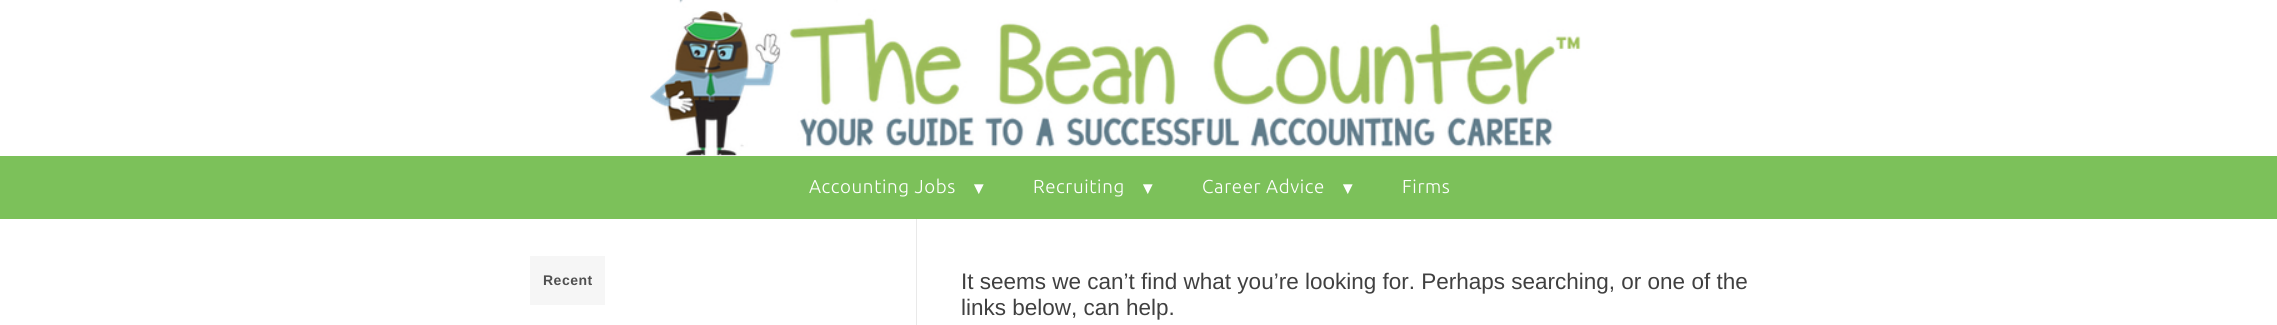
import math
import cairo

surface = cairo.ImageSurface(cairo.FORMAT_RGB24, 2277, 325)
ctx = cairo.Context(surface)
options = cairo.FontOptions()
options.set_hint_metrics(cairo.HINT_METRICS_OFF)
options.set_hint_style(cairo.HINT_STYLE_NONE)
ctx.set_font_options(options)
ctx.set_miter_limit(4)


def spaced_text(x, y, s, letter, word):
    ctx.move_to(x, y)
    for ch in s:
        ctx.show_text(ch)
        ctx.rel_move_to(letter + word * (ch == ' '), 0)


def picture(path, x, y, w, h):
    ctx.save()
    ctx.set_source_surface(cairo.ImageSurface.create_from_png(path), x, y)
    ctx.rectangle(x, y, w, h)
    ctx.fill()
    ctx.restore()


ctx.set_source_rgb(1, 1, 1)
ctx.paint()
picture("img1.png", 650, 0, 931, 156)
ctx.set_source_rgb(0.486, 0.757, 0.353)
ctx.rectangle(0, 156, 2277, 63)
ctx.fill()
ctx.select_font_face("Ubuntu Light")
ctx.set_font_size(18.75)
ctx.set_source_rgb(1, 1, 1)
spaced_text(809, 193, "Accounting Jobs", 0.6, 0)
ctx.select_font_face("DejaVu Sans", cairo.FONT_SLANT_NORMAL, cairo.FONT_WEIGHT_BOLD)
ctx.set_font_size(18)
spaced_text(974, 194, "▾", 0.6, 0)
ctx.select_font_face("Ubuntu Light")
ctx.set_font_size(18.75)
spaced_text(1033, 193, "Recruiting", 0.6, 0)
ctx.select_font_face("DejaVu Sans", cairo.FONT_SLANT_NORMAL, cairo.FONT_WEIGHT_BOLD)
ctx.set_font_size(18)
spaced_text(1143, 194, "▾", 0.6, 0)
ctx.select_font_face("Ubuntu Light")
ctx.set_font_size(18.75)
spaced_text(1202, 193, "Career Advice", 0.6, 0)
ctx.select_font_face("DejaVu Sans", cairo.FONT_SLANT_NORMAL, cairo.FONT_WEIGHT_BOLD)
ctx.set_font_size(18)
spaced_text(1343, 194, "▾", 0.6, 0)
ctx.select_font_face("Ubuntu Light")
ctx.set_font_size(18.75)
spaced_text(1402, 193, "Firms", 0.6, 0)
ctx.set_source_rgb(0.961, 0.961, 0.961)
ctx.rectangle(530, 256, 75, 49)
ctx.fill()
ctx.select_font_face("Liberation Sans", cairo.FONT_SLANT_NORMAL, cairo.FONT_WEIGHT_BOLD)
ctx.set_font_size(14)
ctx.set_source_rgb(0.314, 0.314, 0.314)
spaced_text(543, 285, "Recent", 0.5, 0)
ctx.set_source_rgb(0.914, 0.914, 0.914)
ctx.rectangle(916, 219, 1, 106)
ctx.fill()
ctx.select_font_face("Liberation Sans")
ctx.set_font_size(22.5)
ctx.set_source_rgb(0.251, 0.251, 0.251)
ctx.move_to(961, 289)
ctx.show_text("It seems we can’t find what you’re looking for. Perhaps searching, or one of the")
ctx.move_to(961, 315)
ctx.show_text("links below, can help.")
surface.write_to_png("page.png")
